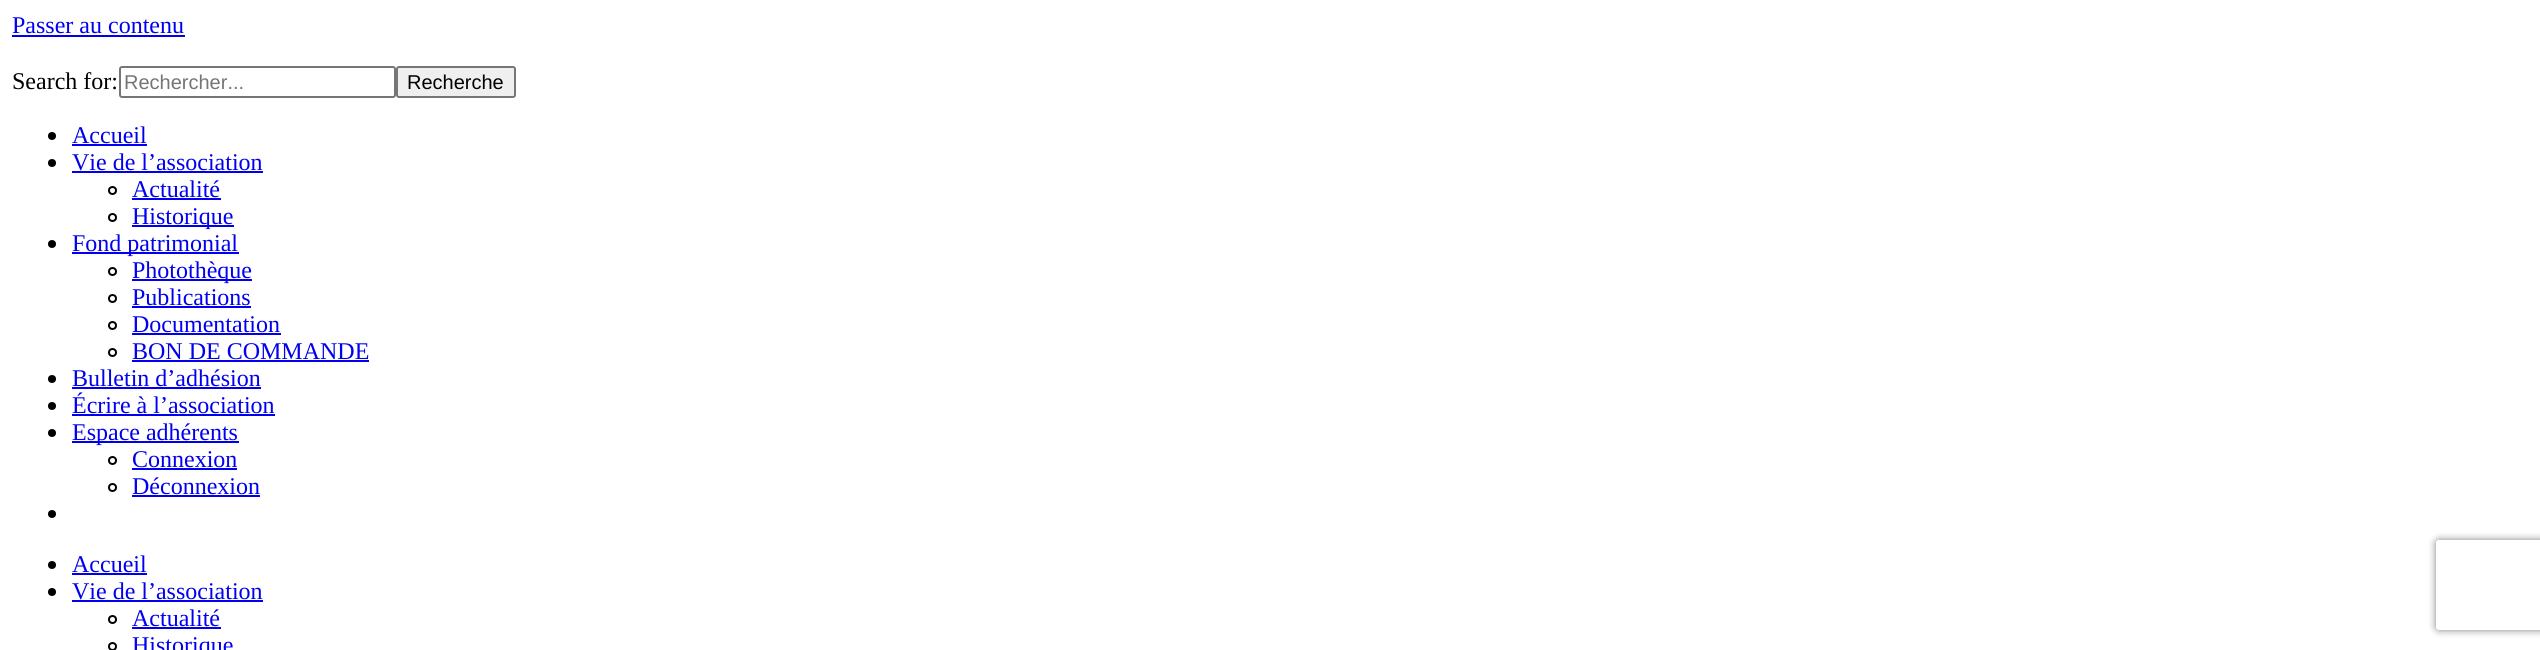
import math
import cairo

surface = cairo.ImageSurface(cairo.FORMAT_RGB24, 2540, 650)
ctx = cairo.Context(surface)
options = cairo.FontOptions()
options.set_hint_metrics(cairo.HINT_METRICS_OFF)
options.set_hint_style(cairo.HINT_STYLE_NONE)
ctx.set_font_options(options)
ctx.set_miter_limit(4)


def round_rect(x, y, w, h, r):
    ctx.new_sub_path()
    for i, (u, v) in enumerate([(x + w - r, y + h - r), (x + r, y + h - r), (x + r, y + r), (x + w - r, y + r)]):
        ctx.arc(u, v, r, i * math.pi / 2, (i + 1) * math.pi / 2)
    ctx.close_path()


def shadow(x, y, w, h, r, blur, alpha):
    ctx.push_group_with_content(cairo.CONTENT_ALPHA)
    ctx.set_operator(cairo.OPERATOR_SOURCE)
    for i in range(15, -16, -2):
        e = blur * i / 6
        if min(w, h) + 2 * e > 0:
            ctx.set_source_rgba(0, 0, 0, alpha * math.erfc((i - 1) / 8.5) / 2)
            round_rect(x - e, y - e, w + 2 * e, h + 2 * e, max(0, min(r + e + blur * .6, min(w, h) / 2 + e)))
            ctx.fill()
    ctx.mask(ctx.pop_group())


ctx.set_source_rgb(1, 1, 1)
ctx.paint()
ctx.select_font_face("Liberation Serif")
ctx.set_font_size(24)
ctx.set_source_rgb(0, 0, 0.933)
ctx.move_to(12, 33)
ctx.show_text("Passer au contenu")
ctx.rectangle(12, 35, 173, 2)
ctx.fill()
ctx.set_source_rgb(0, 0, 0)
ctx.move_to(12, 89)
ctx.show_text("Search for:")
round_rect(120, 67, 275, 30, 2)
ctx.set_source_rgb(0.463, 0.463, 0.463)
ctx.stroke()
ctx.select_font_face("Liberation Sans")
ctx.set_font_size(20)
ctx.set_source_rgb(0.459, 0.459, 0.459)
ctx.move_to(124, 89)
ctx.show_text("Rechercher...")
ctx.set_source_rgb(0.937, 0.937, 0.937)
round_rect(397, 67, 118, 30, 2)
ctx.fill_preserve()
ctx.set_source_rgb(0.463, 0.463, 0.463)
ctx.stroke()
ctx.set_source_rgb(0, 0, 0)
ctx.move_to(407, 89)
ctx.show_text("Recherche")
ctx.new_path()
ctx.arc(52, 136, 4, 0, 2 * math.pi)
ctx.fill()
ctx.select_font_face("Liberation Serif")
ctx.set_font_size(24)
ctx.set_source_rgb(0, 0, 0.933)
ctx.move_to(72, 143)
ctx.show_text("Accueil")
ctx.rectangle(72, 144, 75, 2)
ctx.fill()
ctx.set_source_rgb(0, 0, 0)
ctx.arc(52, 163, 4, 0, 2 * math.pi)
ctx.fill()
ctx.set_source_rgb(0, 0, 0.933)
ctx.move_to(72, 170)
ctx.show_text("Vie de l’association")
ctx.rectangle(72, 171, 191, 2)
ctx.fill()
ctx.arc(112.5, 190.5, 3.5, 0, 2 * math.pi)
ctx.set_source_rgb(0, 0, 0)
ctx.stroke()
ctx.set_source_rgb(0, 0, 0.933)
ctx.move_to(132, 197)
ctx.show_text("Actualité")
ctx.rectangle(132, 198, 89, 2)
ctx.fill()
ctx.arc(112.5, 217.5, 3.5, 0, 2 * math.pi)
ctx.set_source_rgb(0, 0, 0)
ctx.stroke()
ctx.set_source_rgb(0, 0, 0.933)
ctx.rectangle(132, 225, 102, 2)
ctx.fill()
ctx.move_to(132, 224)
ctx.show_text("Historique")
ctx.set_source_rgb(0, 0, 0)
ctx.new_path()
ctx.arc(52, 244, 4, 0, 2 * math.pi)
ctx.fill()
ctx.set_source_rgb(0, 0, 0.933)
ctx.rectangle(72, 252, 167, 2)
ctx.fill()
ctx.move_to(72, 251)
ctx.show_text("Fond patrimonial")
ctx.new_path()
ctx.arc(112.5, 271.5, 3.5, 0, 2 * math.pi)
ctx.set_source_rgb(0, 0, 0)
ctx.stroke()
ctx.set_source_rgb(0, 0, 0.933)
ctx.rectangle(132, 279, 120, 2)
ctx.fill()
ctx.move_to(132, 278)
ctx.show_text("Photothèque")
ctx.new_path()
ctx.arc(112.5, 298.5, 3.5, 0, 2 * math.pi)
ctx.set_source_rgb(0, 0, 0)
ctx.stroke()
ctx.set_source_rgb(0, 0, 0.933)
ctx.move_to(132, 305)
ctx.show_text("Publications")
ctx.rectangle(132, 306, 119, 2)
ctx.fill()
ctx.arc(112.5, 325.5, 3.5, 0, 2 * math.pi)
ctx.set_source_rgb(0, 0, 0)
ctx.stroke()
ctx.set_source_rgb(0, 0, 0.933)
ctx.move_to(132, 332)
ctx.show_text("Documentation")
ctx.rectangle(132, 333, 149, 2)
ctx.fill()
ctx.arc(112.5, 352.5, 3.5, 0, 2 * math.pi)
ctx.set_source_rgb(0, 0, 0)
ctx.stroke()
ctx.set_source_rgb(0, 0, 0.933)
ctx.move_to(132, 359)
ctx.show_text("BON DE COMMANDE")
ctx.rectangle(132, 360, 237, 2)
ctx.fill()
ctx.set_source_rgb(0, 0, 0)
ctx.arc(52, 379, 4, 0, 2 * math.pi)
ctx.fill()
ctx.set_source_rgb(0, 0, 0.933)
ctx.move_to(72, 386)
ctx.show_text("Bulletin d’adhésion")
ctx.rectangle(72, 387, 189, 2)
ctx.fill()
ctx.set_source_rgb(0, 0, 0)
ctx.arc(52, 406, 4, 0, 2 * math.pi)
ctx.fill()
ctx.set_source_rgb(0, 0, 0.933)
ctx.move_to(72, 413)
ctx.show_text("Écrire à l’association")
ctx.rectangle(72, 414, 203, 2)
ctx.fill()
ctx.set_source_rgb(0, 0, 0)
ctx.arc(52, 433, 4, 0, 2 * math.pi)
ctx.fill()
ctx.set_source_rgb(0, 0, 0.933)
ctx.rectangle(72, 441, 167, 2)
ctx.fill()
ctx.move_to(72, 440)
ctx.show_text("Espace adhérents")
ctx.new_path()
ctx.arc(112.5, 460.5, 3.5, 0, 2 * math.pi)
ctx.set_source_rgb(0, 0, 0)
ctx.stroke()
ctx.set_source_rgb(0, 0, 0.933)
ctx.move_to(132, 467)
ctx.show_text("Connexion")
ctx.rectangle(132, 468, 105, 2)
ctx.fill()
ctx.arc(112.5, 487.5, 3.5, 0, 2 * math.pi)
ctx.set_source_rgb(0, 0, 0)
ctx.stroke()
ctx.set_source_rgb(0, 0, 0.933)
ctx.move_to(132, 494)
ctx.show_text("Déconnexion")
ctx.rectangle(132, 495, 128, 2)
ctx.fill()
ctx.set_source_rgb(0, 0, 0)
ctx.arc(52, 514, 4, 0, 2 * math.pi)
ctx.fill()
ctx.arc(52, 565, 4, 0, 2 * math.pi)
ctx.fill()
ctx.set_source_rgb(0, 0, 0.933)
ctx.move_to(72, 572)
ctx.show_text("Accueil")
ctx.rectangle(72, 573, 75, 2)
ctx.fill()
ctx.set_source_rgb(0, 0, 0)
ctx.arc(52, 592, 4, 0, 2 * math.pi)
ctx.fill()
ctx.set_source_rgb(0, 0, 0.933)
ctx.move_to(72, 599)
ctx.show_text("Vie de l’association")
ctx.rectangle(72, 600, 191, 2)
ctx.fill()
ctx.arc(112.5, 619.5, 3.5, 0, 2 * math.pi)
ctx.set_source_rgb(0, 0, 0)
ctx.stroke()
ctx.set_source_rgb(0, 0, 0.933)
ctx.move_to(132, 626)
ctx.show_text("Actualité")
ctx.rectangle(132, 627, 89, 2)
ctx.fill()
ctx.arc(112.5, 646.5, 3.5, 0, 2 * math.pi)
ctx.set_source_rgb(0, 0, 0)
ctx.stroke()
ctx.set_source_rgb(0, 0, 0.933)
ctx.move_to(132, 653)
ctx.show_text("Historique")
ctx.save()
ctx.set_fill_rule(cairo.FILL_RULE_EVEN_ODD)
ctx.new_path()
ctx.move_to(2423, 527)
ctx.line_to(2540, 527)
ctx.line_to(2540, 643)
ctx.line_to(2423, 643)
ctx.close_path()
ctx.move_to(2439, 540)
ctx.line_to(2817, 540)
ctx.curve_to(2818.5, 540, 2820, 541.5, 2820, 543)
ctx.line_to(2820, 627)
ctx.curve_to(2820, 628.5, 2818.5, 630, 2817, 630)
ctx.line_to(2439, 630)
ctx.curve_to(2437.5, 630, 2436, 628.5, 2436, 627)
ctx.line_to(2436, 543)
ctx.curve_to(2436, 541.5, 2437.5, 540, 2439, 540)
ctx.close_path()
ctx.clip()
ctx.set_source_rgb(0.502, 0.502, 0.502)
shadow(2436, 540, 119, 90, 3, 4, 1)
ctx.restore()
surface.write_to_png("page.png")
